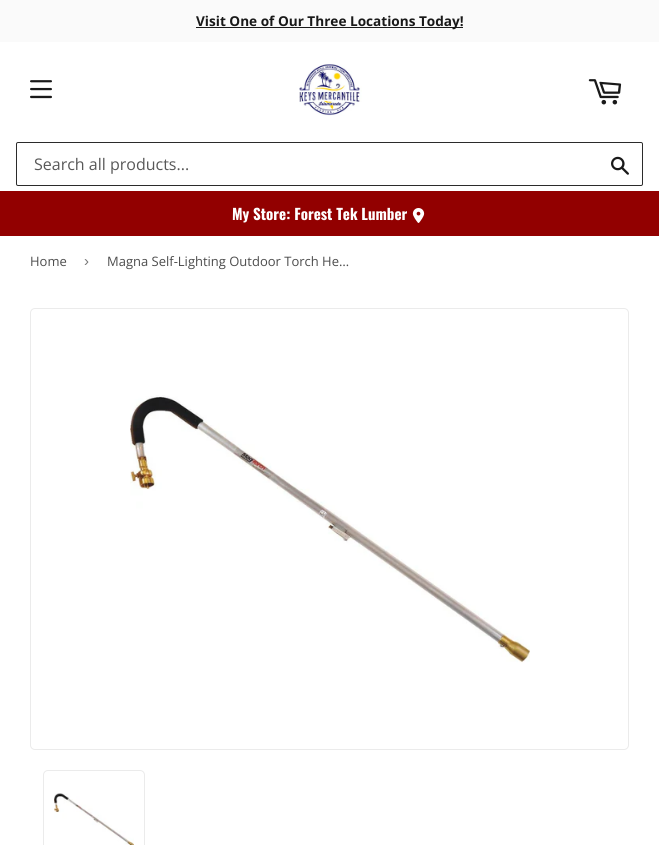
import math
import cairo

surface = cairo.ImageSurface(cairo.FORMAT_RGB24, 659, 845)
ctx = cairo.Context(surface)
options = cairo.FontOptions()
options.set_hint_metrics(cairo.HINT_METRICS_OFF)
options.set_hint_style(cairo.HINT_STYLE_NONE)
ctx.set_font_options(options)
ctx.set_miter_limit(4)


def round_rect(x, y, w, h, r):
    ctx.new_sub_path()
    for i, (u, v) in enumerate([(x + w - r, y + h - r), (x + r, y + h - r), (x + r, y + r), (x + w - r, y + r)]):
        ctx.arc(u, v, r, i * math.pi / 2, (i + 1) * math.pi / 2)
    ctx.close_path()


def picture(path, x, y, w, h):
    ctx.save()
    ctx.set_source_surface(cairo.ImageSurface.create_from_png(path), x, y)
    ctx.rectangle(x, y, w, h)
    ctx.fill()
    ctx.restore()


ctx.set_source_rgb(1, 1, 1)
ctx.paint()
ctx.set_source_rgb(0.98, 0.98, 0.98)
ctx.rectangle(0, 0, 659, 42)
ctx.fill()
ctx.set_source_rgb(0.098, 0.098, 0.098)
ctx.rectangle(196, 27, 267, 1)
ctx.fill()
ctx.select_font_face("Open Sans", cairo.FONT_SLANT_NORMAL, cairo.FONT_WEIGHT_BOLD)
ctx.set_font_size(13.6)
ctx.move_to(196, 26)
ctx.show_text("Visit One of Our Three Locations Today!")
picture("img1.png", 30, 80, 22, 19)
picture("img2.png", 299, 64, 63, 52)
picture("img3.png", 588, 79, 34, 26)
round_rect(16.5, 142.5, 626, 43, 1.5)
ctx.set_source_rgb(0.169, 0.169, 0.169)
ctx.set_line_width(1)
ctx.stroke()
ctx.select_font_face("Open Sans")
ctx.set_font_size(16)
ctx.set_source_rgb(0.345, 0.345, 0.345)
ctx.move_to(34, 170)
ctx.show_text("Search all products...")
picture("img4.png", 611, 156, 18, 19)
ctx.set_source_rgb(0.573, 0, 0)
ctx.rectangle(0, 191, 659, 45)
ctx.fill()
ctx.select_font_face("Oswald", cairo.FONT_SLANT_NORMAL, cairo.FONT_WEIGHT_BOLD)
ctx.set_font_size(15)
ctx.set_source_rgb(1, 1, 1)
ctx.move_to(232, 220)
ctx.show_text("My Store: Forest Tek Lumber")
picture("img5.png", 412, 208, 13, 15)
ctx.select_font_face("Open Sans")
ctx.set_font_size(13)
ctx.set_source_rgb(0.302, 0.302, 0.302)
ctx.move_to(30, 266)
ctx.show_text("Home")
ctx.select_font_face("Liberation Sans")
ctx.set_font_size(15)
ctx.set_source_rgb(0.463, 0.463, 0.463)
ctx.move_to(84, 266)
ctx.show_text("›")
ctx.select_font_face("Open Sans")
ctx.set_font_size(13)
ctx.set_source_rgb(0.302, 0.302, 0.302)
ctx.move_to(107, 266)
ctx.show_text("Magna Self-Lighting Outdoor Torch He…")
round_rect(30.5, 308.5, 598, 441, 4.5)
ctx.set_source_rgb(0.918, 0.918, 0.918)
ctx.stroke()
picture("img6.png", 130, 395, 400, 268)
round_rect(43.5, 770.5, 101, 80, 4.5)
ctx.stroke()
picture("img7.png", 54, 793, 80, 52)
surface.write_to_png("page.png")
